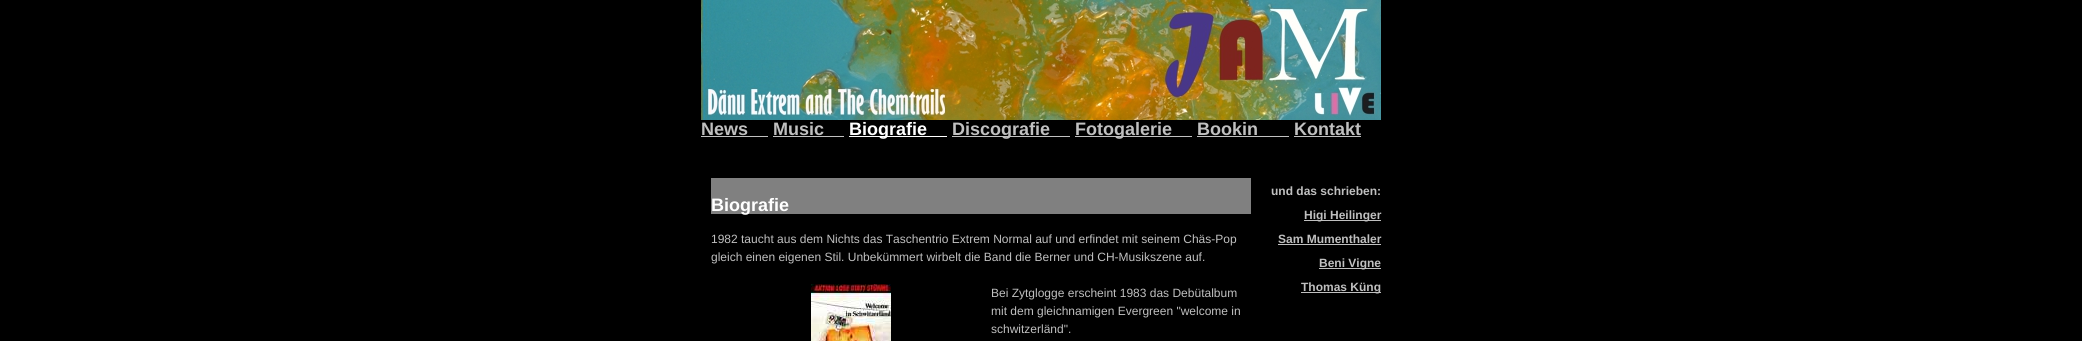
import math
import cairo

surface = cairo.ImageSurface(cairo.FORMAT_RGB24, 2082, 341)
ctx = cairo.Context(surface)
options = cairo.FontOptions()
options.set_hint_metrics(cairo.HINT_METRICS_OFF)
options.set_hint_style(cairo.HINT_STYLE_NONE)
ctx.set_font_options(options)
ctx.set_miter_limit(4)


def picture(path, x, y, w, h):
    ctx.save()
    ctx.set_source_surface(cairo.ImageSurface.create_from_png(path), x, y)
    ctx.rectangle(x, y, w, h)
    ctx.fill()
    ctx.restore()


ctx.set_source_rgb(0, 0, 0)
ctx.paint()
picture("img1.png", 701, 0, 680, 120)
ctx.select_font_face("Liberation Sans", cairo.FONT_SLANT_NORMAL, cairo.FONT_WEIGHT_BOLD)
ctx.set_font_size(18)
ctx.set_source_rgb(0.753, 0.753, 0.753)
ctx.move_to(701, 135)
ctx.show_text("News")
ctx.rectangle(701, 136, 67, 1)
ctx.fill()
ctx.move_to(773, 135)
ctx.show_text("Music")
ctx.rectangle(773, 136, 71, 1)
ctx.fill()
ctx.set_source_rgb(1, 1, 1)
ctx.rectangle(849, 136, 98, 1)
ctx.fill()
ctx.move_to(849, 135)
ctx.show_text("Biografie")
ctx.set_source_rgb(0.753, 0.753, 0.753)
ctx.rectangle(952, 136, 118, 1)
ctx.fill()
ctx.move_to(952, 135)
ctx.show_text("Discografie")
ctx.rectangle(1075, 136, 117, 1)
ctx.fill()
ctx.move_to(1075, 135)
ctx.show_text("Fotogalerie")
ctx.move_to(1197, 135)
ctx.show_text("Bookin")
ctx.rectangle(1197, 136, 92, 1)
ctx.fill()
ctx.move_to(1294, 135)
ctx.show_text("Kontakt")
ctx.rectangle(1294, 136, 67, 1)
ctx.fill()
ctx.set_source_rgb(0.502, 0.502, 0.502)
ctx.rectangle(711, 178, 540, 36)
ctx.fill()
ctx.set_source_rgb(1, 1, 1)
ctx.move_to(711, 211)
ctx.show_text("Biografie")
ctx.select_font_face("Liberation Sans")
ctx.set_font_size(12)
ctx.set_source_rgb(0.753, 0.753, 0.753)
ctx.move_to(711, 243)
ctx.show_text("1982 taucht aus dem Nichts das Taschentrio Extrem Normal auf und erfindet mit seinem Chäs-Pop")
ctx.move_to(711, 261)
ctx.show_text("gleich einen eigenen Stil. Unbekümmert wirbelt die Band die Berner und CH-Musikszene auf.")
picture("img2.png", 811, 284, 80, 57)
ctx.move_to(991, 297)
ctx.show_text("Bei Zytglogge erscheint 1983 das Debütalbum")
ctx.move_to(991, 315)
ctx.show_text("mit dem gleichnamigen Evergreen \"welcome in")
ctx.move_to(991, 333)
ctx.show_text("schwitzerländ\".")
ctx.select_font_face("Liberation Sans", cairo.FONT_SLANT_NORMAL, cairo.FONT_WEIGHT_BOLD)
ctx.move_to(1271, 195)
ctx.show_text("und das schrieben:")
ctx.rectangle(1304, 220, 77, 1)
ctx.fill()
ctx.move_to(1304, 219)
ctx.show_text("Higi Heilinger")
ctx.move_to(1278, 243)
ctx.show_text("Sam Mumenthaler")
ctx.rectangle(1278, 244, 103, 1)
ctx.fill()
ctx.rectangle(1319, 268, 62, 1)
ctx.fill()
ctx.move_to(1319, 267)
ctx.show_text("Beni Vigne")
ctx.rectangle(1301, 292, 80, 1)
ctx.fill()
ctx.move_to(1301, 291)
ctx.show_text("Thomas Küng")
surface.write_to_png("page.png")
